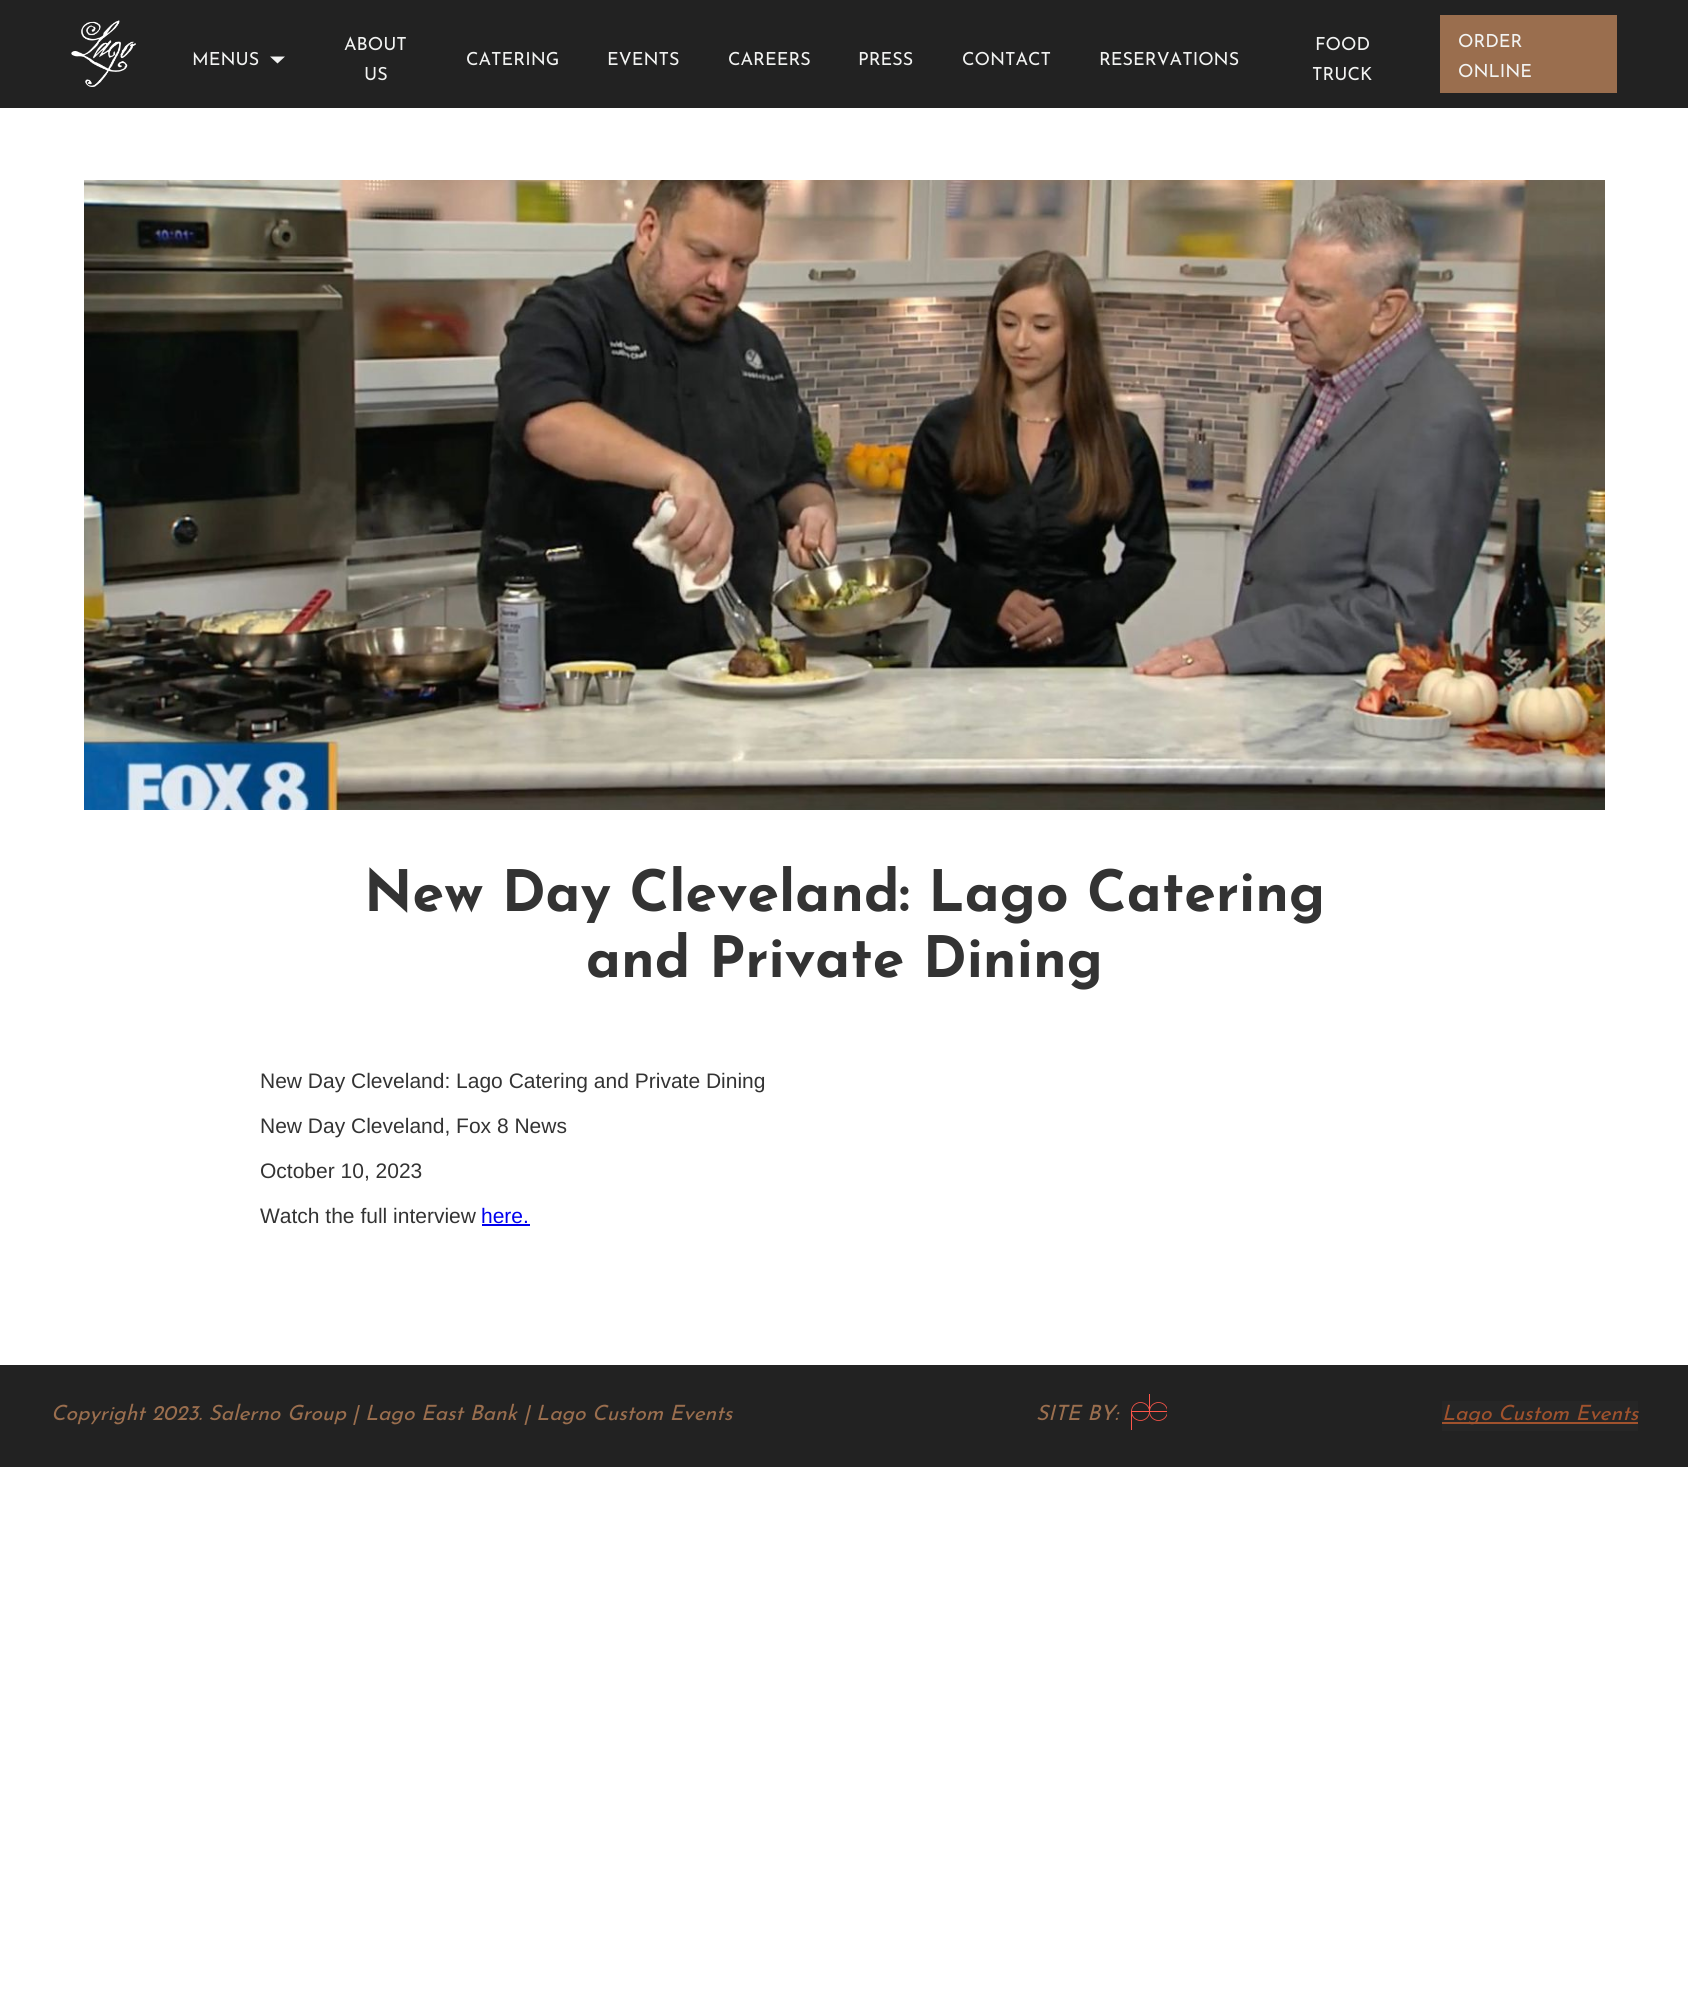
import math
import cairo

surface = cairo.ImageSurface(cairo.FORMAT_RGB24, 1688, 2010)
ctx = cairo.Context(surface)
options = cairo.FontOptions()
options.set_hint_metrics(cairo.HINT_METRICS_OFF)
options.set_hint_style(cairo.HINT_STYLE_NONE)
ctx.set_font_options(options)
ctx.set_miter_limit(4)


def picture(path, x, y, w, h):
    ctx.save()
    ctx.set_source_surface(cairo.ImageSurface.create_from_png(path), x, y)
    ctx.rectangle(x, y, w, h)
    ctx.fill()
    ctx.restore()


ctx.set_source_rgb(1, 1, 1)
ctx.paint()
ctx.set_source_rgb(0.133, 0.133, 0.133)
ctx.rectangle(0, 0, 1688, 108)
ctx.fill()
picture("img1.png", 71, 20, 65, 67)
ctx.select_font_face("Josefin Sans")
ctx.set_font_size(18)
ctx.set_source_rgb(0.949, 0.953, 0.949)
ctx.move_to(192, 65)
ctx.show_text("MENUS")
ctx.new_path()
ctx.move_to(270, 56.5)
ctx.line_to(285, 56.5)
ctx.line_to(277.5, 63.5)
ctx.close_path()
ctx.fill()
ctx.move_to(344, 50)
ctx.show_text("ABOUT")
ctx.move_to(364, 80)
ctx.show_text("US")
ctx.move_to(466, 65)
ctx.show_text("CATERING")
ctx.move_to(607, 65)
ctx.show_text("EVENTS")
ctx.move_to(728, 65)
ctx.show_text("CAREERS")
ctx.move_to(858, 65)
ctx.show_text("PRESS")
ctx.move_to(962, 65)
ctx.show_text("CONTACT")
ctx.move_to(1099, 65)
ctx.show_text("RESERVATIONS")
ctx.move_to(1315, 50)
ctx.show_text("FOOD")
ctx.move_to(1312, 80)
ctx.show_text("TRUCK")
ctx.set_source_rgb(0.604, 0.431, 0.306)
ctx.rectangle(1440, 15, 177, 78)
ctx.fill()
ctx.set_source_rgb(0.949, 0.953, 0.949)
ctx.move_to(1458, 47)
ctx.show_text("ORDER")
ctx.move_to(1458, 77)
ctx.show_text("ONLINE")
picture("img2.png", 84, 180, 1521, 630)
ctx.select_font_face("Josefin Sans", cairo.FONT_SLANT_NORMAL, cairo.FONT_WEIGHT_BOLD)
ctx.set_font_size(57)
ctx.set_source_rgb(0.2, 0.2, 0.2)
ctx.move_to(364, 911)
ctx.show_text("New Day Cleveland: Lago Catering")
ctx.move_to(586, 977)
ctx.show_text("and Private Dining")
ctx.select_font_face("Liberation Sans")
ctx.set_font_size(21)
ctx.move_to(260, 1088)
ctx.show_text("New Day Cleveland: Lago Catering and Private Dining")
ctx.move_to(260, 1133)
ctx.show_text("New Day Cleveland, Fox 8 News")
ctx.move_to(260, 1178)
ctx.show_text("October 10, 2023")
ctx.move_to(260, 1223)
ctx.show_text("Watch the full interview")
ctx.set_source_rgb(0, 0, 0.933)
ctx.move_to(481, 1223)
ctx.show_text("here.")
ctx.rectangle(482, 1224, 48, 2)
ctx.fill()
ctx.set_source_rgb(0.133, 0.133, 0.133)
ctx.rectangle(0, 1365, 1688, 102)
ctx.fill()
ctx.select_font_face("Josefin Sans", cairo.FONT_SLANT_ITALIC)
ctx.set_source_rgb(0.604, 0.431, 0.306)
ctx.move_to(51, 1420)
ctx.show_text("Copyright 2023. Salerno Group | Lago East Bank | Lago Custom Events")
ctx.move_to(1036, 1420)
ctx.show_text("SITE BY:")
ctx.set_source_rgb(1, 0.337, 0.29)
ctx.rectangle(1131, 1411, 36, 1)
ctx.fill()
ctx.arc(1140.5, 1411.5, 9, 0, 2 * math.pi)
ctx.set_line_width(0.8)
ctx.stroke()
ctx.save()
ctx.rectangle(1131, 1394, 36, 36)
ctx.clip()
ctx.arc(1158.5, 1411.5, 9, 0, 2 * math.pi)
ctx.stroke()
ctx.restore()
ctx.rectangle(1131, 1412, 1, 18)
ctx.fill()
ctx.rectangle(1149, 1394, 1, 18)
ctx.fill()
ctx.set_source_rgb(0.149, 0.149, 0.149)
ctx.rectangle(1442, 1401, 196, 30)
ctx.fill()
ctx.set_source_rgb(0.627, 0.322, 0.176)
ctx.rectangle(1442, 1422, 196, 2)
ctx.fill()
ctx.move_to(1442, 1420)
ctx.show_text("Lago Custom Events")
surface.write_to_png("page.png")
